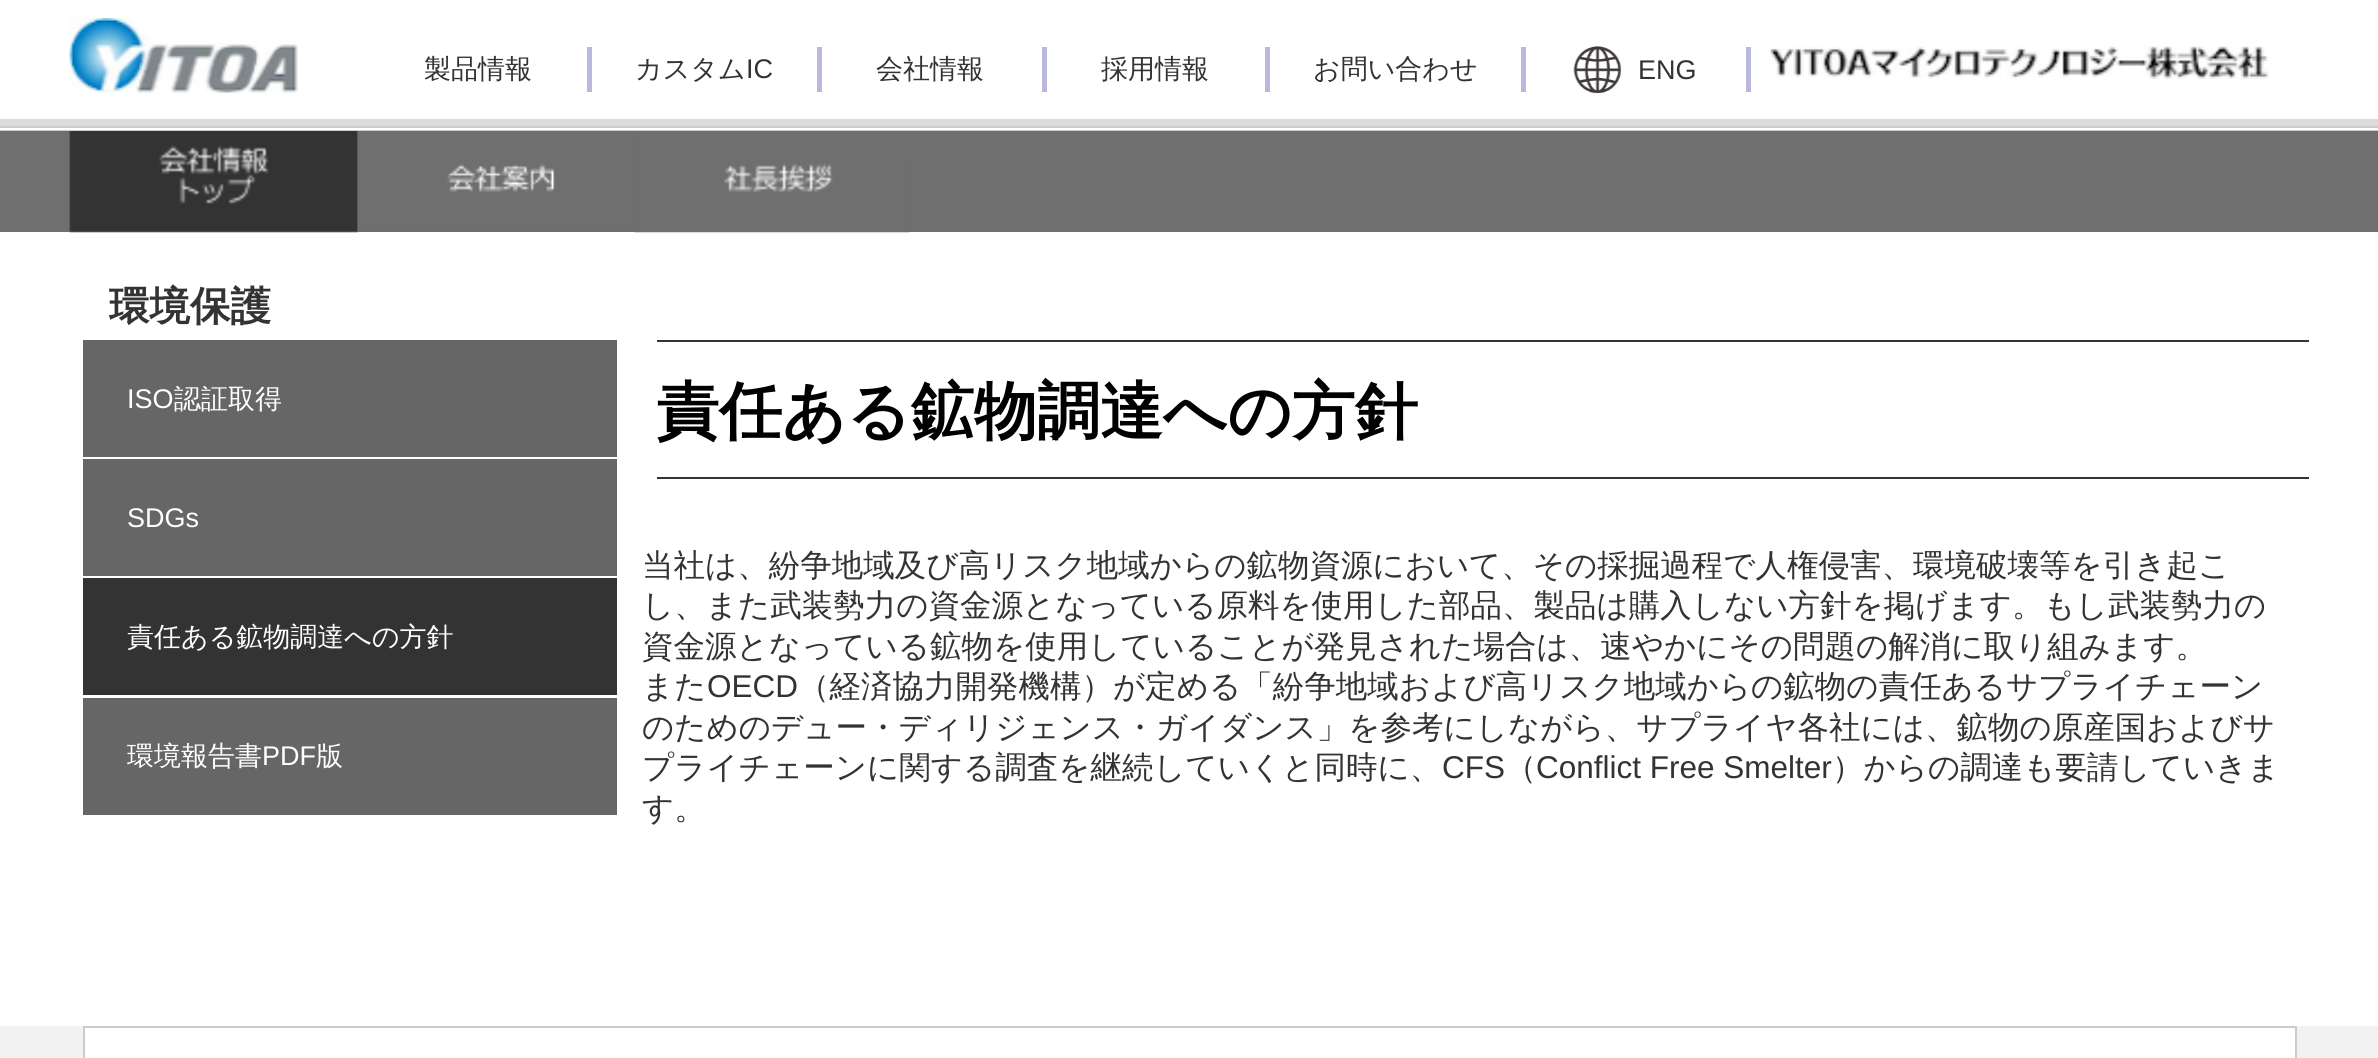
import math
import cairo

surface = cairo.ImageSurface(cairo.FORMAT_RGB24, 2378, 1058)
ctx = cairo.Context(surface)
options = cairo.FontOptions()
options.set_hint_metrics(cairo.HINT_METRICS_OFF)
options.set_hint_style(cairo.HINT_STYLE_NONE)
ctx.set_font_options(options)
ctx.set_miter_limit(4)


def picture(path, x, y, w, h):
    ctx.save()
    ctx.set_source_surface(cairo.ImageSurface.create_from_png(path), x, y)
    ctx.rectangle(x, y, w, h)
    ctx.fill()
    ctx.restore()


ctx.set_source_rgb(1, 1, 1)
ctx.paint()
picture("img1.png", 69, 18, 229, 75)
ctx.select_font_face("WenQuanYi Zen Hei Medium")
ctx.set_font_size(27)
ctx.set_source_rgb(0.2, 0.2, 0.2)
ctx.move_to(424, 78)
ctx.show_text("製品情報")
ctx.set_source_rgb(0.722, 0.725, 0.863)
ctx.rectangle(587, 47, 5, 45)
ctx.fill()
ctx.set_source_rgb(0.2, 0.2, 0.2)
ctx.move_to(635, 78)
ctx.show_text("カスタム")
ctx.select_font_face("Liberation Sans")
ctx.move_to(746, 78)
ctx.show_text("IC")
ctx.set_source_rgb(0.722, 0.725, 0.863)
ctx.rectangle(817, 47, 5, 45)
ctx.fill()
ctx.select_font_face("WenQuanYi Zen Hei Medium")
ctx.set_source_rgb(0.2, 0.2, 0.2)
ctx.move_to(876, 78)
ctx.show_text("会社情報")
ctx.set_source_rgb(0.722, 0.725, 0.863)
ctx.rectangle(1042, 47, 5, 45)
ctx.fill()
ctx.set_source_rgb(0.2, 0.2, 0.2)
ctx.move_to(1101, 78)
ctx.show_text("採用情報")
ctx.set_source_rgb(0.722, 0.725, 0.863)
ctx.rectangle(1265, 47, 5, 45)
ctx.fill()
ctx.set_source_rgb(0.2, 0.2, 0.2)
ctx.move_to(1313, 78)
ctx.show_text("お問い合わせ")
ctx.set_source_rgb(0.722, 0.725, 0.863)
ctx.rectangle(1521, 47, 5, 45)
ctx.fill()
picture("img2.png", 1573, 46, 49, 48)
ctx.select_font_face("Liberation Sans")
ctx.set_source_rgb(0.2, 0.2, 0.2)
ctx.move_to(1638, 79)
ctx.show_text("ENG")
ctx.set_source_rgb(0.722, 0.725, 0.863)
ctx.rectangle(1746, 47, 5, 45)
ctx.fill()
picture("img3.png", 1770, 46, 499, 33)
ctx.set_source_rgb(0.863, 0.863, 0.863)
ctx.rectangle(0, 119, 2378, 7)
ctx.fill()
ctx.set_source_rgb(0.8, 0.8, 0.8)
ctx.rectangle(0, 126, 2378, 5)
ctx.fill()
ctx.set_source_rgb(1, 1, 1)
ctx.rectangle(0, 128, 2378, 2)
ctx.fill()
ctx.set_source_rgb(0.435, 0.435, 0.435)
ctx.rectangle(0, 131, 2378, 101)
ctx.fill()
picture("img4.png", 69, 131, 290, 102)
ctx.rectangle(358, 131, 1, 101)
ctx.fill()
picture("img5.png", 357, 131, 278, 101)
picture("img6.png", 634, 163, 276, 70)
ctx.select_font_face("WenQuanYi Zen Hei", cairo.FONT_SLANT_NORMAL, cairo.FONT_WEIGHT_BOLD)
ctx.set_font_size(40.5)
ctx.set_source_rgb(0.2, 0.2, 0.2)
ctx.move_to(109, 320)
ctx.show_text("環境保護")
ctx.set_source_rgb(0.4, 0.4, 0.4)
ctx.rectangle(83, 340, 534, 117)
ctx.fill()
ctx.select_font_face("Liberation Sans")
ctx.set_font_size(27)
ctx.set_source_rgb(1, 1, 1)
ctx.move_to(127, 408)
ctx.show_text("ISO")
ctx.select_font_face("WenQuanYi Zen Hei Medium")
ctx.move_to(174, 408)
ctx.show_text("認証取得")
ctx.set_source_rgb(0.4, 0.4, 0.4)
ctx.rectangle(83, 459, 534, 117)
ctx.fill()
ctx.select_font_face("Liberation Sans")
ctx.set_source_rgb(1, 1, 1)
ctx.move_to(127, 527)
ctx.show_text("SDGs")
ctx.set_source_rgb(0.2, 0.2, 0.2)
ctx.rectangle(83, 578, 534, 117)
ctx.fill()
ctx.select_font_face("WenQuanYi Zen Hei Medium")
ctx.set_source_rgb(1, 1, 1)
ctx.move_to(127, 646)
ctx.show_text("責任ある鉱物調達への方針")
ctx.set_source_rgb(0.4, 0.4, 0.4)
ctx.rectangle(83, 698, 534, 117)
ctx.fill()
ctx.set_source_rgb(1, 1, 1)
ctx.move_to(127, 765)
ctx.show_text("環境報告書")
ctx.select_font_face("Liberation Sans")
ctx.move_to(262, 765)
ctx.show_text("PDF")
ctx.select_font_face("WenQuanYi Zen Hei Medium")
ctx.move_to(316, 765)
ctx.show_text("版")
ctx.set_source_rgb(0.2, 0.2, 0.2)
ctx.rectangle(657, 340, 1652, 2)
ctx.fill()
ctx.rectangle(657, 477, 1652, 2)
ctx.fill()
ctx.select_font_face("WenQuanYi Zen Hei", cairo.FONT_SLANT_NORMAL, cairo.FONT_WEIGHT_BOLD)
ctx.set_font_size(63)
ctx.set_source_rgb(0, 0, 0)
ctx.move_to(656, 433)
ctx.show_text("責任ある鉱物調達への方針")
ctx.select_font_face("WenQuanYi Zen Hei Medium")
ctx.set_font_size(31.5)
ctx.set_source_rgb(0.2, 0.2, 0.2)
ctx.move_to(642, 576)
ctx.show_text("当社は、紛争地域及び高リスク地域からの鉱物資源において、その採掘過程で人権侵害、環境破壊等を引き起こ")
ctx.move_to(642, 616)
ctx.show_text("し、また武装勢力の資金源となっている原料を使用した部品、製品は購入しない方針を掲げます。もし武装勢力の")
ctx.move_to(642, 657)
ctx.show_text("資金源となっている鉱物を使用していることが発見された場合は、速やかにその問題の解消に取り組みます。")
ctx.move_to(642, 697)
ctx.show_text("また")
ctx.select_font_face("Liberation Sans")
ctx.move_to(707, 697)
ctx.show_text("OECD")
ctx.select_font_face("WenQuanYi Zen Hei Medium")
ctx.move_to(798, 697)
ctx.show_text("（経済協力開発機構）が定める「紛争地域および高リスク地域からの鉱物の責任あるサプライチェーン")
ctx.move_to(642, 738)
ctx.show_text("のためのデュー・ディリジェンス・ガイダンス」を参考にしながら、サプライヤ各社には、鉱物の原産国およびサ")
ctx.move_to(642, 778)
ctx.show_text("プライチェーンに関する調査を継続していくと同時に、")
ctx.select_font_face("Liberation Sans")
ctx.move_to(1442, 778)
ctx.show_text("CFS")
ctx.select_font_face("WenQuanYi Zen Hei Medium")
ctx.move_to(1505, 778)
ctx.show_text("（")
ctx.select_font_face("Liberation Sans")
ctx.move_to(1536, 778)
ctx.show_text("Conflict Free Smelter")
ctx.select_font_face("WenQuanYi Zen Hei Medium")
ctx.move_to(1832, 778)
ctx.show_text("）からの調達も要請していきま")
ctx.move_to(642, 819)
ctx.show_text("す。")
ctx.set_source_rgb(0.949, 0.949, 0.949)
ctx.rectangle(0, 1026, 2378, 32)
ctx.fill()
ctx.set_source_rgb(1, 1, 1)
ctx.rectangle(84, 1027, 2212, 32)
ctx.fill_preserve()
ctx.set_source_rgb(0.8, 0.8, 0.8)
ctx.stroke()
surface.write_to_png("page.png")
